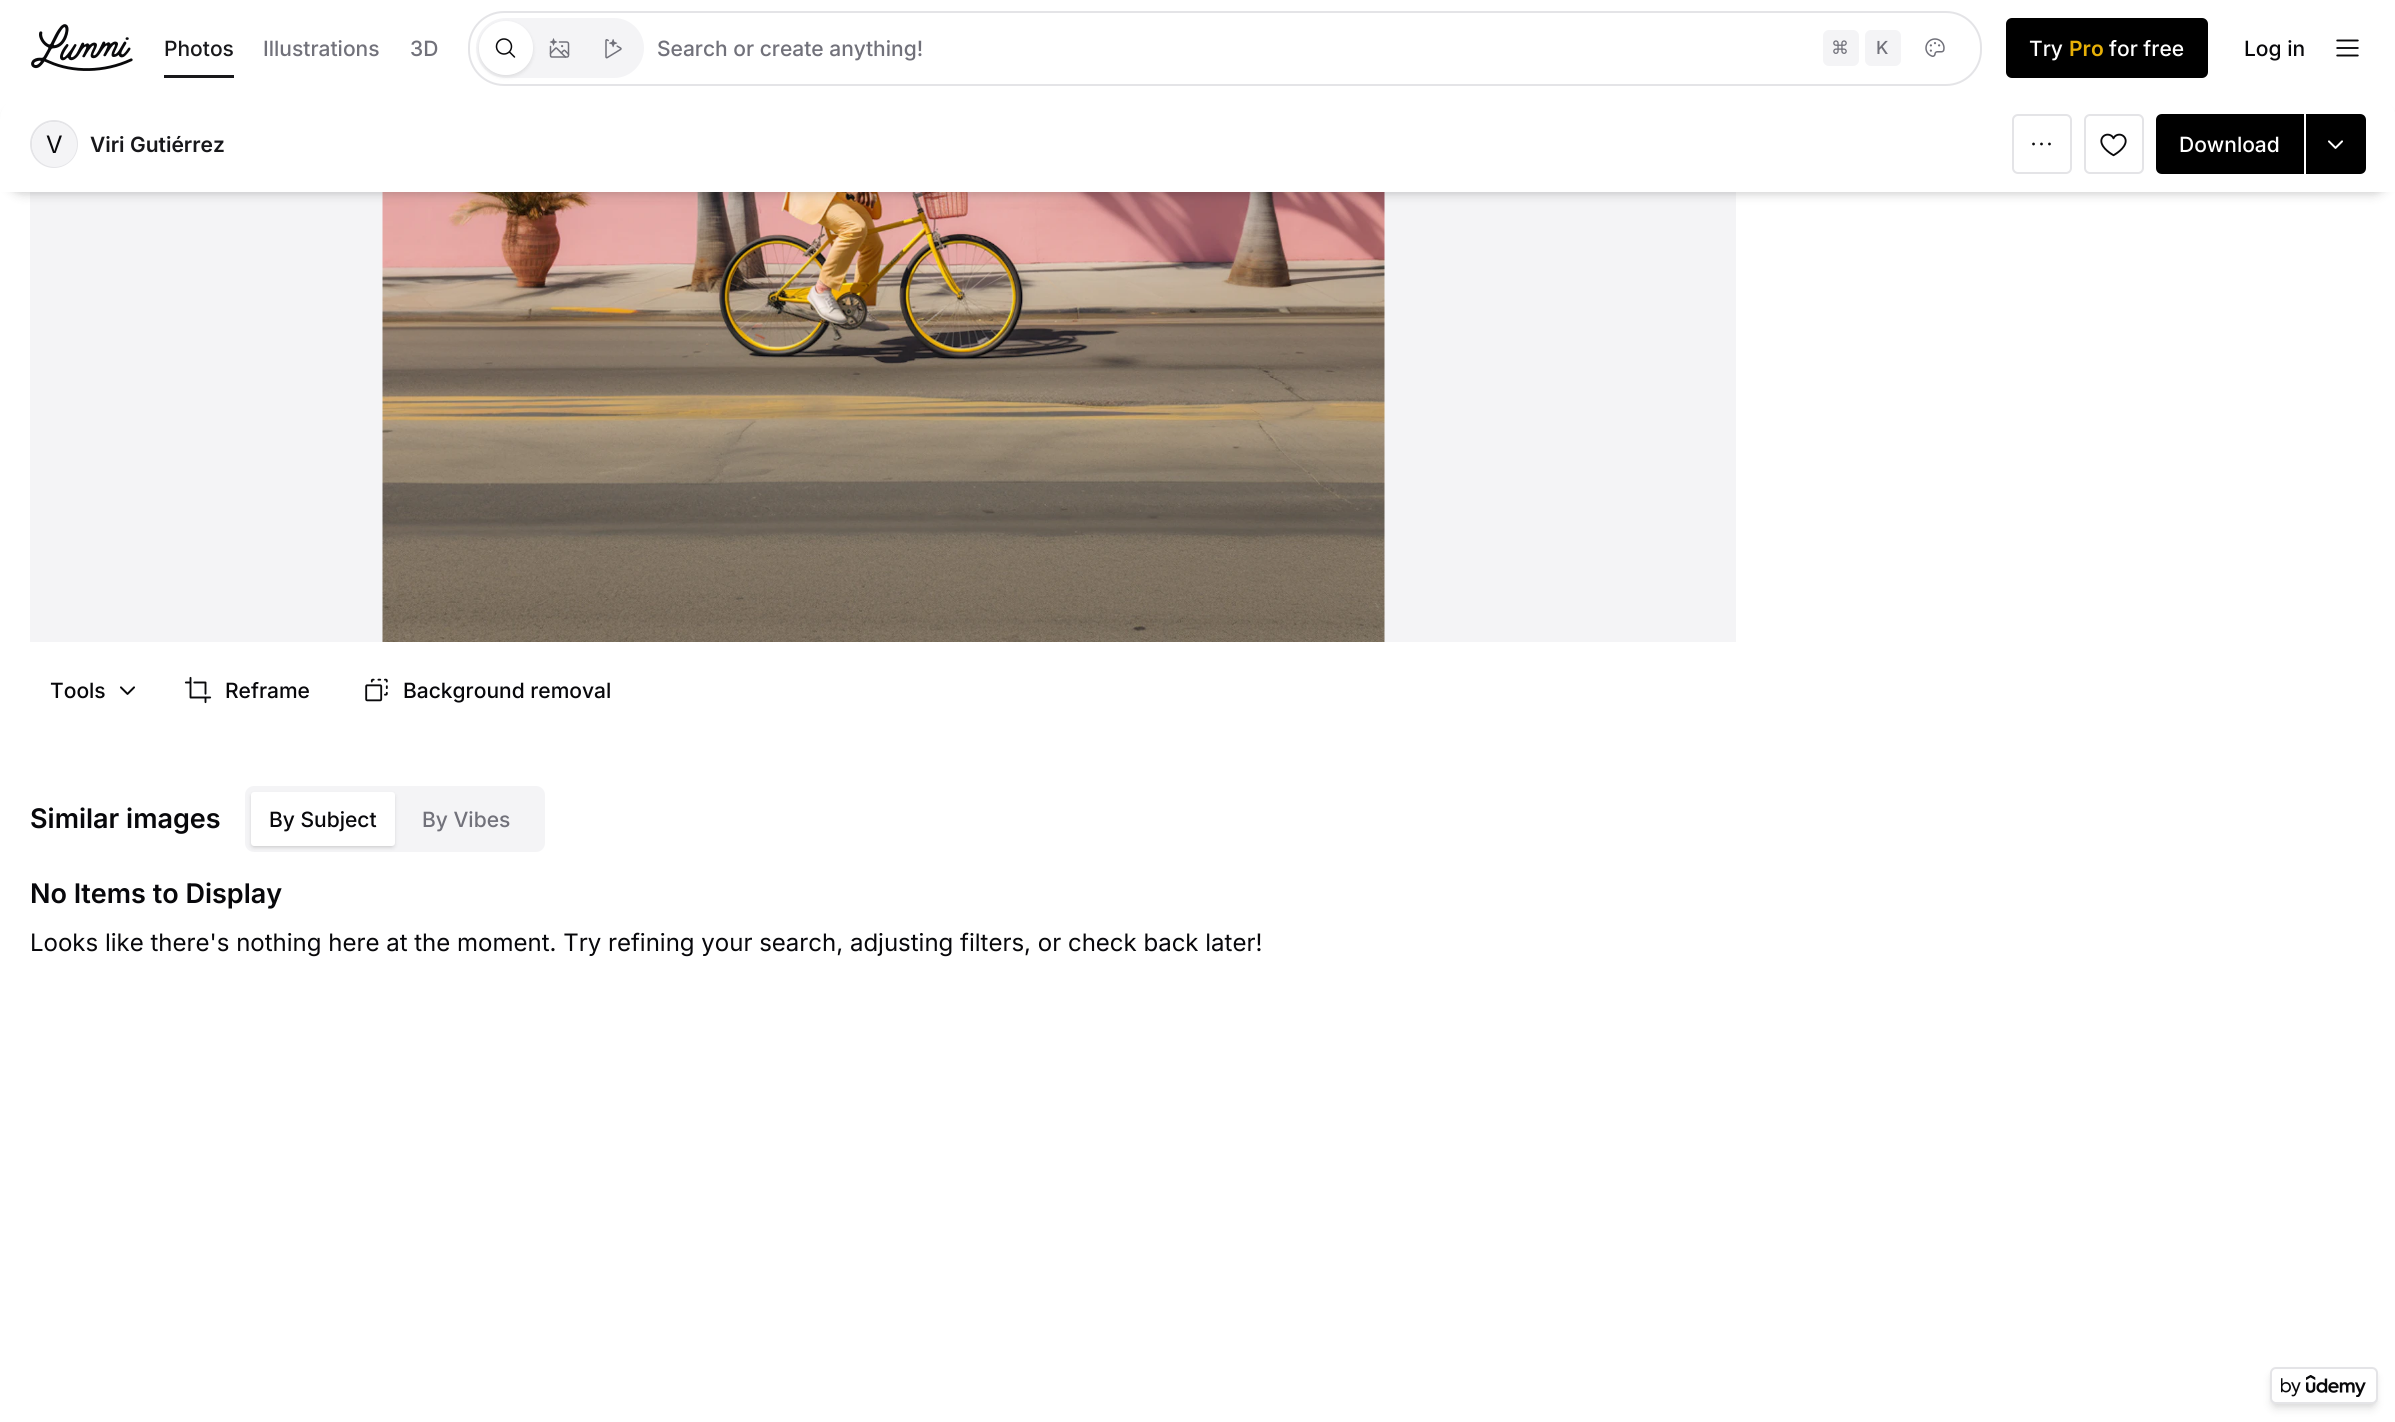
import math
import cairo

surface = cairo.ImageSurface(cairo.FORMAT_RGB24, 2395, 1422)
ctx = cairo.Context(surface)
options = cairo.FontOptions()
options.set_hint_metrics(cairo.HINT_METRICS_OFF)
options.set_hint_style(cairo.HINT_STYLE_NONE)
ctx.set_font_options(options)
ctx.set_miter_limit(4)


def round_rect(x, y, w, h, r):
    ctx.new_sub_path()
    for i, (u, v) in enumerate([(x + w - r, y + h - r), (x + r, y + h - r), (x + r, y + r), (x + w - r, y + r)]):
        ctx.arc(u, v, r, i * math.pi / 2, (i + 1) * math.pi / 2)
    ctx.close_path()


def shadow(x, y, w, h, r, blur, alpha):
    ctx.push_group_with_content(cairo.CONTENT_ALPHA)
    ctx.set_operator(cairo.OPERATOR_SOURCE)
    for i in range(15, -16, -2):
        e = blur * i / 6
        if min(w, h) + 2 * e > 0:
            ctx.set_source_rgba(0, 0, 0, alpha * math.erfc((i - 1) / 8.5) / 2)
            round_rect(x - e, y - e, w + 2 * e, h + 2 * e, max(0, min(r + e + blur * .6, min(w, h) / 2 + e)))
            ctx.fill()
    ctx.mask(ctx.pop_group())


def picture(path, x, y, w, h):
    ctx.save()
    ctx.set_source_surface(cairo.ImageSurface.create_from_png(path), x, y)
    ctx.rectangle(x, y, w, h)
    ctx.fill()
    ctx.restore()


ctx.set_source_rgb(1, 1, 1)
ctx.paint()
picture("img1.png", 31, 24, 102, 47)
ctx.set_source_rgb(0.094, 0.094, 0.106)
ctx.rectangle(164, 75, 70, 3)
ctx.fill()
ctx.select_font_face("Inter Medium")
ctx.set_font_size(21)
ctx.move_to(164, 56)
ctx.show_text("Photos")
ctx.set_source_rgb(0.443, 0.443, 0.478)
ctx.move_to(263, 56)
ctx.show_text("Illustrations")
ctx.move_to(410, 56)
ctx.show_text("3D")
round_rect(469, 12, 1512, 73, 35)
ctx.set_source_rgb(0.894, 0.894, 0.906)
ctx.stroke()
ctx.set_source_rgb(0.957, 0.957, 0.961)
round_rect(476, 18, 168, 60, 30)
ctx.fill()
ctx.set_source_rgb(1, 1, 1)
ctx.arc(506, 48, 27, 0, 2 * math.pi)
ctx.fill()
ctx.save()
ctx.set_fill_rule(cairo.FILL_RULE_EVEN_ODD)
ctx.new_path()
ctx.move_to(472, 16)
ctx.line_to(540, 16)
ctx.line_to(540, 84)
ctx.line_to(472, 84)
ctx.close_path()
ctx.move_to(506, 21)
ctx.curve_to(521, 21, 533, 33, 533, 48)
ctx.curve_to(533, 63, 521, 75, 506, 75)
ctx.curve_to(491, 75, 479, 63, 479, 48)
ctx.curve_to(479, 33, 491, 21, 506, 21)
ctx.close_path()
ctx.clip()
ctx.set_source_rgb(0, 0, 0)
shadow(479, 23, 54, 54, 27, 2, 0.1)
ctx.restore()
picture("img2.png", 495, 38, 21, 20)
picture("img3.png", 549, 38, 21, 20)
picture("img4.png", 605, 39, 17, 20)
ctx.set_source_rgb(0.443, 0.443, 0.478)
ctx.move_to(657, 56)
ctx.show_text("Search or create anything!")
ctx.set_source_rgb(0.957, 0.957, 0.961)
round_rect(1823, 30, 36, 36, 6)
ctx.fill()
ctx.select_font_face("DejaVu Sans")
ctx.set_font_size(18)
ctx.set_source_rgb(0.443, 0.443, 0.478)
ctx.move_to(1831, 54)
ctx.show_text("⌘")
ctx.set_source_rgb(0.957, 0.957, 0.961)
round_rect(1865, 30, 36, 36, 6)
ctx.fill()
ctx.select_font_face("Inter Medium")
ctx.set_source_rgb(0.443, 0.443, 0.478)
ctx.move_to(1876, 54)
ctx.show_text("K")
picture("img5.png", 1925, 38, 20, 19)
ctx.set_source_rgb(0, 0, 0)
round_rect(2006, 18, 202, 60, 6)
ctx.fill()
ctx.set_font_size(21)
ctx.set_source_rgb(1, 1, 1)
ctx.move_to(2029, 56)
ctx.show_text("Try")
ctx.select_font_face("Inter SemiBold")
ctx.set_source_rgb(0.906, 0.69, 0.031)
ctx.move_to(2069, 56)
ctx.show_text("Pro")
ctx.select_font_face("Inter Medium")
ctx.set_source_rgb(1, 1, 1)
ctx.move_to(2109, 56)
ctx.show_text("for free")
ctx.set_source_rgb(0.035, 0.035, 0.043)
ctx.move_to(2244, 56)
ctx.show_text("Log in")
picture("img6.png", 2336, 39, 23, 18)
ctx.set_source_rgb(0.957, 0.957, 0.961)
ctx.rectangle(30, 192, 1706, 450)
ctx.fill()
picture("img10.png", 382, 192, 1003, 450)
ctx.set_source_rgb(0, 0, 0)
shadow(3, 102, 2390, 90, 21, 3, 0.1)
shadow(2, 104, 2392, 93, 23, 4.5, 0.1)
ctx.set_source_rgb(1, 1, 1)
ctx.new_path()
ctx.move_to(24, 96)
ctx.line_to(2372, 96)
ctx.curve_to(2385.5, 96, 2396, 106.5, 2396, 120)
ctx.line_to(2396, 192)
ctx.line_to(0, 192)
ctx.line_to(0, 120)
ctx.curve_to(0, 106.5, 10.5, 96, 24, 96)
ctx.close_path()
ctx.fill()
ctx.arc(54, 144, 23, 0, 2 * math.pi)
ctx.set_source_rgb(0.894, 0.894, 0.906)
ctx.stroke()
ctx.set_source_rgb(0.957, 0.957, 0.961)
ctx.arc(54.5, 144.5, 22.5, 0, 2 * math.pi)
ctx.fill()
ctx.select_font_face("Inter")
ctx.set_font_size(24)
ctx.set_source_rgb(0.035, 0.035, 0.043)
ctx.move_to(46, 153)
ctx.show_text("V")
ctx.select_font_face("Inter SemiBold")
ctx.set_font_size(21)
ctx.set_source_rgb(0.094, 0.094, 0.106)
ctx.move_to(90, 152)
ctx.show_text("Viri Gutiérrez")
round_rect(2013, 115, 58, 58, 5)
ctx.set_source_rgb(0.894, 0.894, 0.906)
ctx.stroke()
picture("img7.png", 2032, 142, 19, 4)
round_rect(2085, 115, 58, 58, 5)
ctx.stroke()
picture("img8.png", 2100, 133, 27, 24)
ctx.set_source_rgb(0, 0, 0)
ctx.new_path()
ctx.move_to(2162, 114)
ctx.line_to(2304, 114)
ctx.line_to(2304, 174)
ctx.line_to(2162, 174)
ctx.curve_to(2158.5, 174, 2156, 171.5, 2156, 168)
ctx.line_to(2156, 120)
ctx.curve_to(2156, 116.5, 2158.5, 114, 2162, 114)
ctx.close_path()
ctx.fill()
ctx.select_font_face("Inter Medium")
ctx.set_source_rgb(1, 1, 1)
ctx.move_to(2179, 152)
ctx.show_text("Download")
ctx.set_source_rgb(0, 0, 0)
ctx.new_path()
ctx.move_to(2306, 114)
ctx.line_to(2360, 114)
ctx.curve_to(2363.5, 114, 2366, 116.5, 2366, 120)
ctx.line_to(2366, 168)
ctx.curve_to(2366, 171.5, 2363.5, 174, 2360, 174)
ctx.line_to(2306, 174)
ctx.close_path()
ctx.fill()
picture("img9.png", 2328, 140, 15, 9)
ctx.set_source_rgb(0.035, 0.035, 0.043)
ctx.move_to(50, 698)
ctx.show_text("Tools")
picture("img11.png", 120, 686, 15, 9)
picture("img12.png", 184, 676, 28, 28)
ctx.move_to(225, 698)
ctx.show_text("Reframe")
picture("img13.png", 365, 678, 23, 24)
ctx.move_to(403, 698)
ctx.show_text("Background removal")
ctx.select_font_face("Inter SemiBold")
ctx.set_font_size(27)
ctx.move_to(30, 828)
ctx.show_text("Similar images")
ctx.set_source_rgb(0.957, 0.957, 0.961)
round_rect(245, 786, 300, 66, 9)
ctx.fill()
ctx.set_source_rgb(0, 0, 0)
shadow(252, 795, 141, 51, 1.5, 1.5, 0.1)
shadow(251, 794, 144, 54, 3, 2, 0.1)
ctx.set_source_rgb(1, 1, 1)
round_rect(251, 792, 144, 54, 3)
ctx.fill()
ctx.select_font_face("Inter Medium")
ctx.set_font_size(21)
ctx.set_source_rgb(0.035, 0.035, 0.043)
ctx.move_to(269, 827)
ctx.show_text("By Subject")
ctx.set_source_rgb(0.443, 0.443, 0.478)
ctx.move_to(422, 827)
ctx.show_text("By Vibes")
ctx.select_font_face("Inter SemiBold")
ctx.set_font_size(27)
ctx.set_source_rgb(0.035, 0.035, 0.043)
ctx.move_to(30, 903)
ctx.show_text("No Items to Display")
ctx.select_font_face("Inter")
ctx.set_font_size(24)
ctx.move_to(30, 951)
ctx.show_text("Looks like there's nothing here at the moment. Try refining your search, adjusting filters, or check back later!")
ctx.set_source_rgb(0, 0, 0)
shadow(2273, 1373, 102, 31, 3, 3, 0.1)
shadow(2271, 1374, 105, 35, 5, 4.5, 0.1)
ctx.set_source_rgb(1, 1, 1)
round_rect(2271, 1368, 106, 35, 5)
ctx.fill_preserve()
ctx.set_source_rgb(0.894, 0.894, 0.906)
ctx.stroke()
picture("img14.png", 2281, 1378, 20, 19)
picture("img15.png", 2306, 1375, 60, 22)
surface.write_to_png("page.png")
